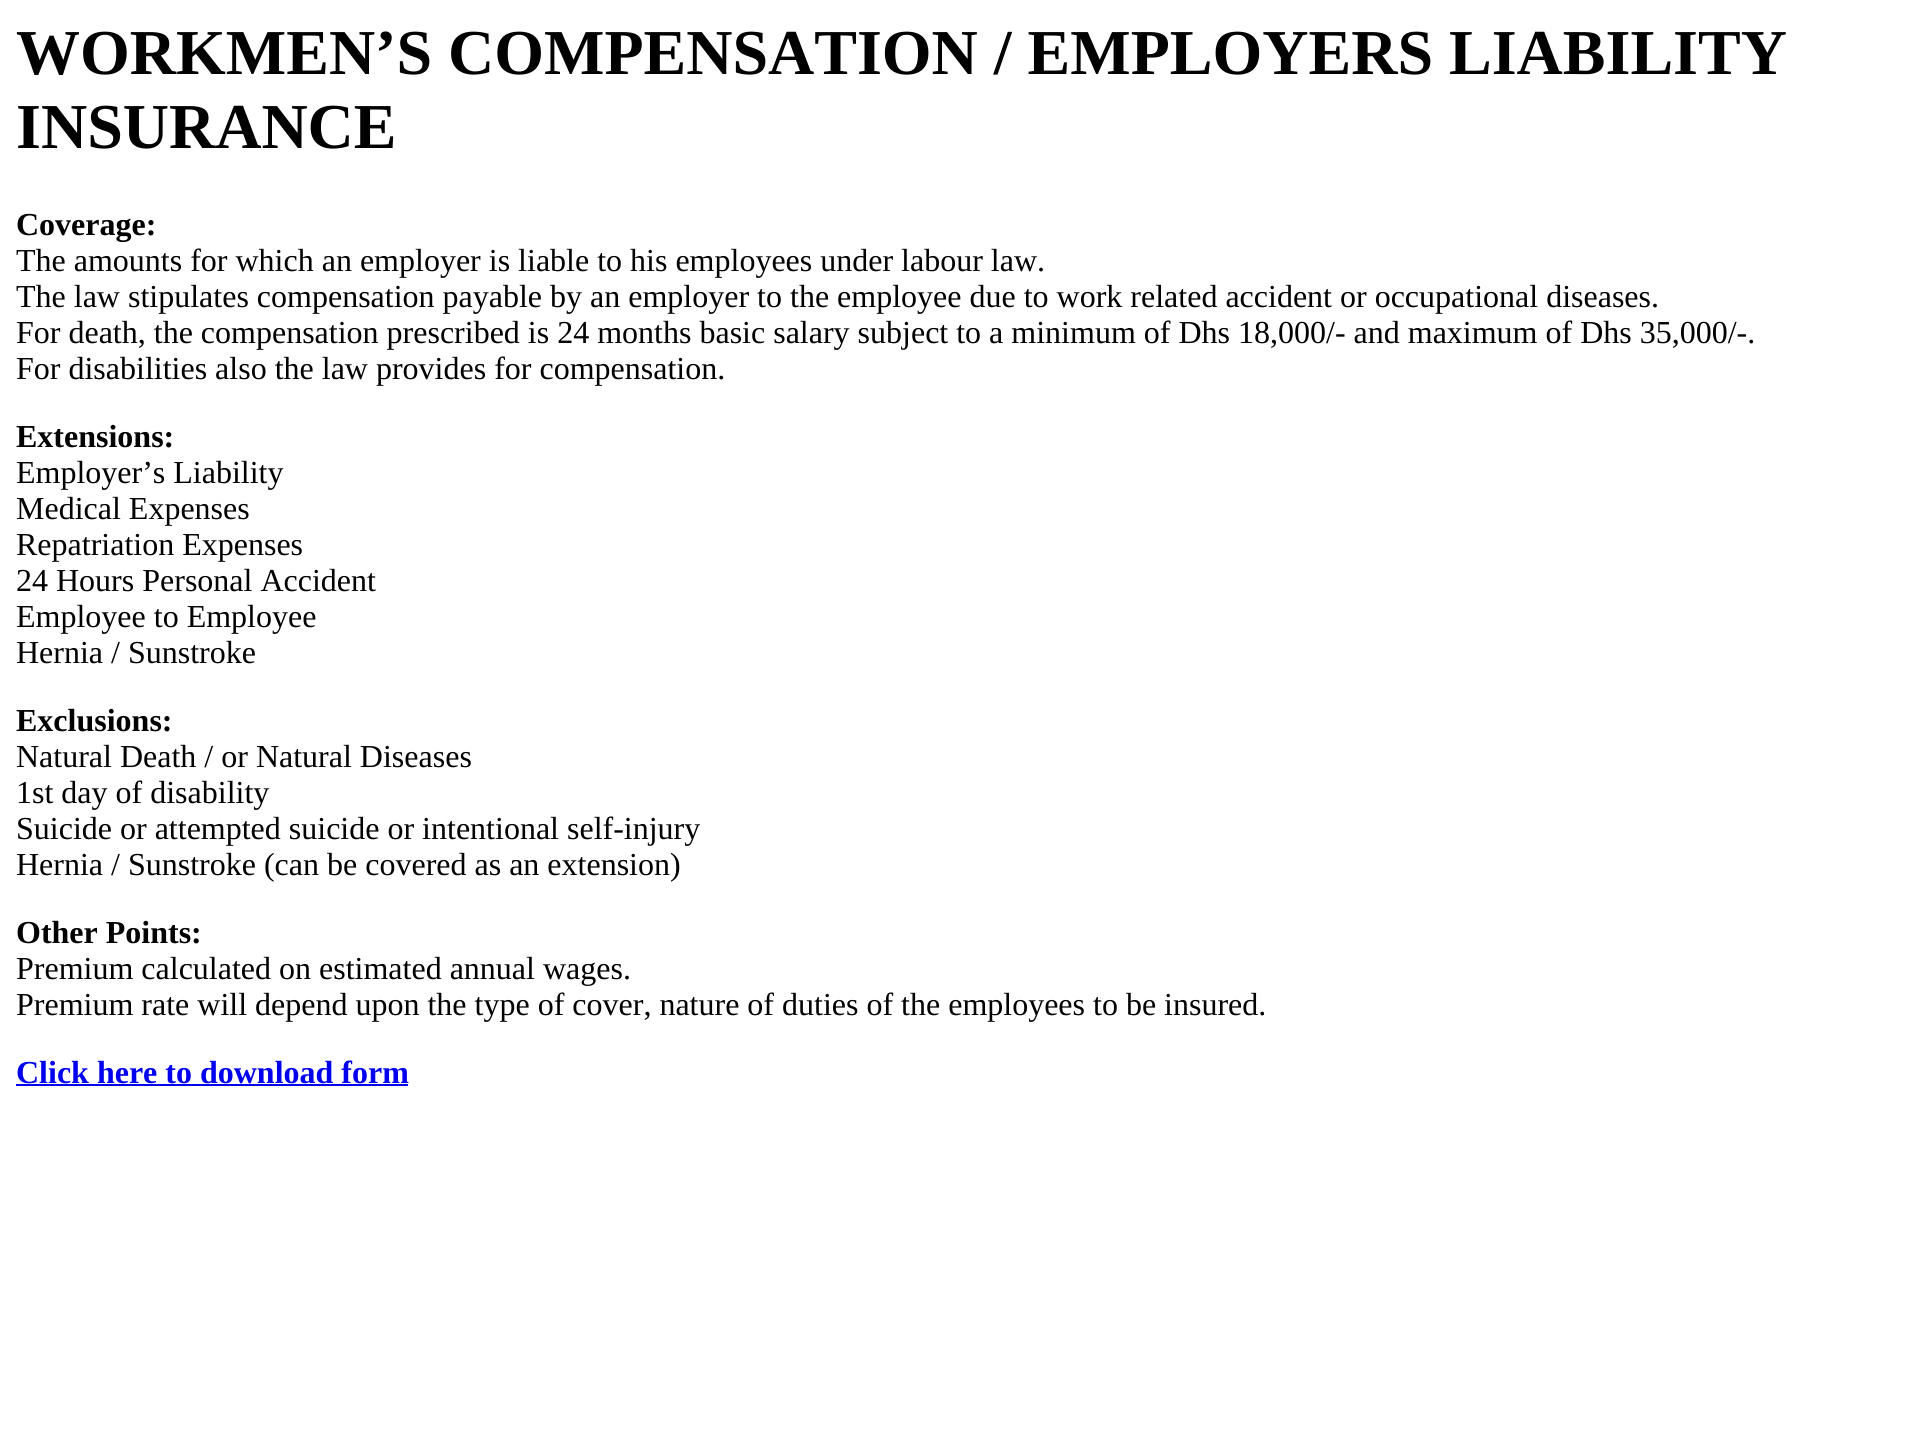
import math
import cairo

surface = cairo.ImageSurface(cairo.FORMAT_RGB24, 1921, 1452)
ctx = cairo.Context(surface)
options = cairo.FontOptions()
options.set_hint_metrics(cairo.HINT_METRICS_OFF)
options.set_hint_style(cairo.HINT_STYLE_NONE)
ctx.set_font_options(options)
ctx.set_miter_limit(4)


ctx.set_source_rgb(1, 1, 1)
ctx.paint()
ctx.select_font_face("Liberation Serif", cairo.FONT_SLANT_NORMAL, cairo.FONT_WEIGHT_BOLD)
ctx.set_font_size(64)
ctx.set_source_rgb(0, 0, 0)
ctx.move_to(16, 74)
ctx.show_text("WORKMEN’S COMPENSATION / EMPLOYERS LIABILITY")
ctx.move_to(16, 148)
ctx.show_text("INSURANCE")
ctx.set_font_size(32)
ctx.move_to(16, 235)
ctx.show_text("Coverage:")
ctx.select_font_face("Liberation Serif")
ctx.move_to(16, 271)
ctx.show_text("The amounts for which an employer is liable to his employees under labour law.")
ctx.move_to(16, 307)
ctx.show_text("The law stipulates compensation payable by an employer to the employee due to work related accident or occupational diseases.")
ctx.move_to(16, 343)
ctx.show_text("For death, the compensation prescribed is 24 months basic salary subject to a minimum of Dhs 18,000/- and maximum of Dhs 35,000/-.")
ctx.move_to(16, 379)
ctx.show_text("For disabilities also the law provides for compensation.")
ctx.select_font_face("Liberation Serif", cairo.FONT_SLANT_NORMAL, cairo.FONT_WEIGHT_BOLD)
ctx.move_to(16, 447)
ctx.show_text("Extensions:")
ctx.select_font_face("Liberation Serif")
ctx.move_to(16, 483)
ctx.show_text("Employer’s Liability")
ctx.move_to(16, 519)
ctx.show_text("Medical Expenses")
ctx.move_to(16, 555)
ctx.show_text("Repatriation Expenses")
ctx.move_to(16, 591)
ctx.show_text("24 Hours Personal Accident")
ctx.move_to(16, 627)
ctx.show_text("Employee to Employee")
ctx.move_to(16, 663)
ctx.show_text("Hernia / Sunstroke")
ctx.select_font_face("Liberation Serif", cairo.FONT_SLANT_NORMAL, cairo.FONT_WEIGHT_BOLD)
ctx.move_to(16, 731)
ctx.show_text("Exclusions:")
ctx.select_font_face("Liberation Serif")
ctx.move_to(16, 767)
ctx.show_text("Natural Death / or Natural Diseases")
ctx.move_to(16, 803)
ctx.show_text("1st day of disability")
ctx.move_to(16, 839)
ctx.show_text("Suicide or attempted suicide or intentional self-injury")
ctx.move_to(16, 875)
ctx.show_text("Hernia / Sunstroke (can be covered as an extension)")
ctx.select_font_face("Liberation Serif", cairo.FONT_SLANT_NORMAL, cairo.FONT_WEIGHT_BOLD)
ctx.move_to(16, 943)
ctx.show_text("Other Points:")
ctx.select_font_face("Liberation Serif")
ctx.move_to(16, 979)
ctx.show_text("Premium calculated on estimated annual wages.")
ctx.move_to(16, 1015)
ctx.show_text("Premium rate will depend upon the type of cover, nature of duties of the employees to be insured.")
ctx.select_font_face("Liberation Serif", cairo.FONT_SLANT_NORMAL, cairo.FONT_WEIGHT_BOLD)
ctx.set_source_rgb(0, 0, 0.933)
ctx.move_to(16, 1083)
ctx.show_text("Click here to download form")
ctx.rectangle(16, 1084, 392, 2)
ctx.fill()
surface.write_to_png("page.png")
